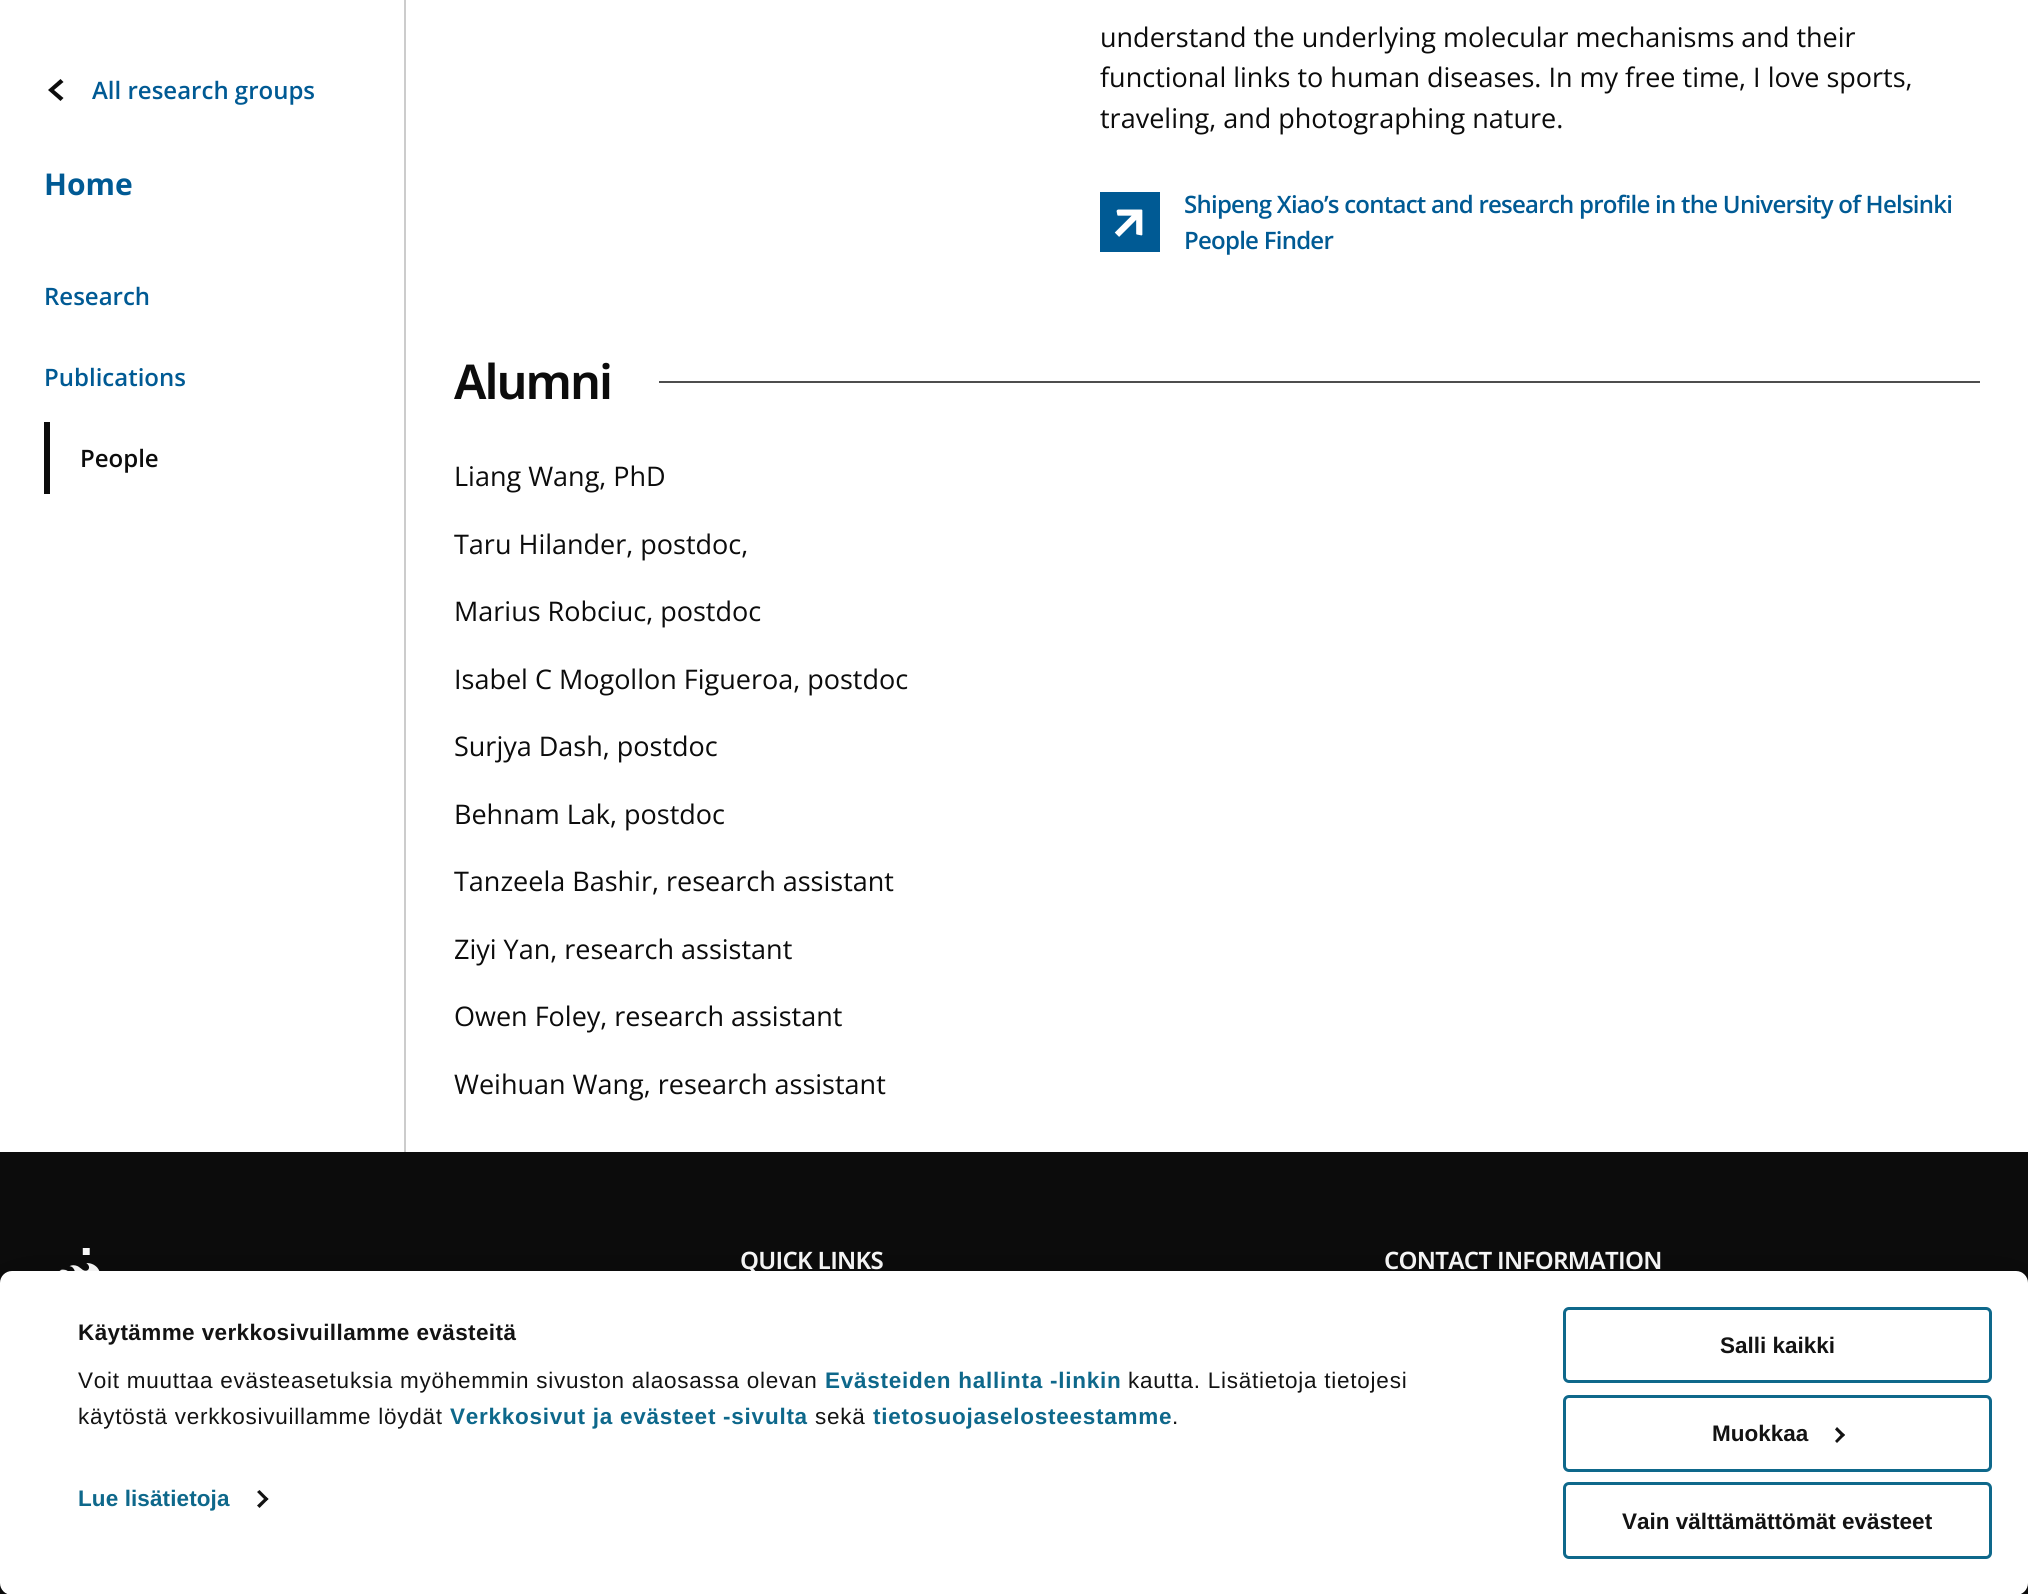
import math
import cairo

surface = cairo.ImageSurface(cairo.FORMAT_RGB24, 2028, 1594)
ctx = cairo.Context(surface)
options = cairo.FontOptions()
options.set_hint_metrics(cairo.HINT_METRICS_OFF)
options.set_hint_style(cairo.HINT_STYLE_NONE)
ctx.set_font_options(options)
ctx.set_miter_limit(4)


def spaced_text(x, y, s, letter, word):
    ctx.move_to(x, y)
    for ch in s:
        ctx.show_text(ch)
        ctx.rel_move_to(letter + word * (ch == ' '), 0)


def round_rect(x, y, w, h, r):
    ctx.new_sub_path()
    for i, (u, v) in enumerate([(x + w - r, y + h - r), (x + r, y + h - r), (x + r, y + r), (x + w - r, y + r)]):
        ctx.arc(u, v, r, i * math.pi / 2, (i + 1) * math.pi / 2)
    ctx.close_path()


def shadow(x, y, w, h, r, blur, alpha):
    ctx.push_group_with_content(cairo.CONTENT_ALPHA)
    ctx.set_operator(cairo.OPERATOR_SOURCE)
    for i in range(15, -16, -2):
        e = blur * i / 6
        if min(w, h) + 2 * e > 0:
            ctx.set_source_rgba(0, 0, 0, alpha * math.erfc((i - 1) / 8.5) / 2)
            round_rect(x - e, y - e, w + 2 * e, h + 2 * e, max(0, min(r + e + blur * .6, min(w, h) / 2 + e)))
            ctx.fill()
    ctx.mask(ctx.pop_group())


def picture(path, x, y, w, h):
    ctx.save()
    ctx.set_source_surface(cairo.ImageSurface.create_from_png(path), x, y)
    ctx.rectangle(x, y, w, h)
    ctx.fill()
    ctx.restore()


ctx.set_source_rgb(1, 1, 1)
ctx.paint()
ctx.set_source_rgb(0.8, 0.8, 0.8)
ctx.rectangle(404, 0, 2, 1152)
ctx.fill()
ctx.set_source_rgb(0.047, 0.047, 0.047)
ctx.new_path()
ctx.move_to(48, 90)
ctx.line_to(60.5, 101)
ctx.line_to(63.5, 98)
ctx.line_to(54, 90)
ctx.line_to(63.5, 82)
ctx.line_to(60.5, 79)
ctx.close_path()
ctx.fill()
ctx.select_font_face("Open Sans SemiBold")
ctx.set_font_size(24)
ctx.set_source_rgb(0, 0.353, 0.58)
ctx.move_to(92, 99)
ctx.show_text("All research groups")
ctx.select_font_face("Open Sans", cairo.FONT_SLANT_NORMAL, cairo.FONT_WEIGHT_BOLD)
ctx.set_font_size(30)
ctx.move_to(44, 195)
ctx.show_text("Home")
ctx.select_font_face("Open Sans SemiBold")
ctx.set_font_size(24)
ctx.move_to(44, 305)
ctx.show_text("Research")
ctx.move_to(44, 386)
ctx.show_text("Publications")
ctx.set_source_rgb(0.047, 0.047, 0.047)
ctx.rectangle(44, 422, 6, 72)
ctx.fill()
ctx.move_to(80, 467)
ctx.show_text("People")
ctx.select_font_face("Open Sans")
ctx.set_font_size(27)
ctx.move_to(1100, 47)
ctx.show_text("understand the underlying molecular mechanisms and their")
ctx.move_to(1100, 87)
ctx.show_text("functional links to human diseases. In my free time, I love sports,")
ctx.move_to(1100, 128)
ctx.show_text("traveling, and photographing nature.")
ctx.set_source_rgb(0, 0.353, 0.58)
ctx.rectangle(1100, 192, 60, 60)
ctx.fill()
picture("img1.png", 1114, 209, 29, 28)
ctx.select_font_face("Open Sans SemiBold")
ctx.set_font_size(24)
spaced_text(1184, 213, "Shipeng Xiao’s contact and research profile in the University of Helsinki", -0.75, 0)
spaced_text(1184, 249, "People Finder", -0.75, 0)
ctx.select_font_face("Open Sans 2 SemiBold")
ctx.set_font_size(48)
ctx.set_source_rgb(0.047, 0.047, 0.047)
spaced_text(454, 399, "Alumni", -2, 0)
ctx.set_source_rgb(0.302, 0.302, 0.302)
ctx.rectangle(659, 381, 1321, 2)
ctx.fill()
ctx.select_font_face("Open Sans")
ctx.set_font_size(27)
ctx.set_source_rgb(0.047, 0.047, 0.047)
ctx.move_to(454, 486)
ctx.show_text("Liang Wang, PhD")
ctx.move_to(454, 554)
ctx.show_text("Taru Hilander, postdoc,")
ctx.move_to(454, 621)
ctx.show_text("Marius Robciuc, postdoc")
ctx.move_to(454, 689)
ctx.show_text("Isabel C Mogollon Figueroa, postdoc")
ctx.move_to(454, 756)
ctx.show_text("Surjya Dash, postdoc")
ctx.move_to(454, 824)
ctx.show_text("Behnam Lak, postdoc")
ctx.move_to(454, 891)
ctx.show_text("Tanzeela Bashir, research assistant")
ctx.move_to(454, 959)
ctx.show_text("Ziyi Yan, research assistant")
ctx.move_to(454, 1026)
ctx.show_text("Owen Foley, research assistant")
ctx.move_to(454, 1094)
ctx.show_text("Weihuan Wang, research assistant")
ctx.rectangle(0, 1152, 2028, 442)
ctx.fill()
picture("img2.png", 59, 1248, 41, 23)
ctx.select_font_face("Open Sans 2 SemiBold")
ctx.set_font_size(24)
ctx.set_source_rgb(1, 1, 1)
spaced_text(740, 1269, "QUICK LINKS", -0.7, 0)
spaced_text(1384, 1269, "CONTACT INFORMATION", -0.7, 0)
ctx.set_source_rgb(0, 0, 0)
shadow(0, 1316, 2028, 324, 12, 52.5, 0.3)
ctx.set_source_rgb(1, 1, 1)
round_rect(0, 1271, 2028, 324, 12)
ctx.fill()
ctx.select_font_face("Liberation Sans", cairo.FONT_SLANT_NORMAL, cairo.FONT_WEIGHT_BOLD)
ctx.set_font_size(22.5)
ctx.set_source_rgb(0.078, 0.078, 0.078)
spaced_text(78, 1340, "Käytämme verkkosivuillamme evästeitä", 0.4, 0)
ctx.select_font_face("Liberation Sans")
spaced_text(78, 1388, "Voit muuttaa evästeasetuksia myöhemmin sivuston alaosassa olevan", 0.75, 0)
ctx.select_font_face("Liberation Sans", cairo.FONT_SLANT_NORMAL, cairo.FONT_WEIGHT_BOLD)
ctx.set_source_rgb(0.055, 0.408, 0.545)
spaced_text(825, 1388, "Evästeiden hallinta -linkin", 0.75, 0)
ctx.select_font_face("Liberation Sans")
ctx.set_source_rgb(0.078, 0.078, 0.078)
spaced_text(1128, 1388, "kautta. Lisätietoja tietojesi", 0.75, 0)
spaced_text(78, 1424, "käytöstä verkkosivuillamme löydät", 0.75, 0)
ctx.select_font_face("Liberation Sans", cairo.FONT_SLANT_NORMAL, cairo.FONT_WEIGHT_BOLD)
ctx.set_source_rgb(0.055, 0.408, 0.545)
spaced_text(450, 1424, "Verkkosivut ja evästeet -sivulta", 0.75, 0)
ctx.select_font_face("Liberation Sans")
ctx.set_source_rgb(0.078, 0.078, 0.078)
spaced_text(815, 1424, "sekä", 0.75, 0)
ctx.select_font_face("Liberation Sans", cairo.FONT_SLANT_NORMAL, cairo.FONT_WEIGHT_BOLD)
ctx.set_source_rgb(0.055, 0.408, 0.545)
spaced_text(873, 1424, "tietosuojaselosteestamme", 0.75, 0)
ctx.select_font_face("Liberation Sans")
ctx.set_source_rgb(0.078, 0.078, 0.078)
spaced_text(1172, 1424, ".", 0.75, 0)
ctx.select_font_face("Liberation Sans", cairo.FONT_SLANT_NORMAL, cairo.FONT_WEIGHT_BOLD)
ctx.set_source_rgb(0.055, 0.408, 0.545)
spaced_text(78, 1506, "Lue lisätietoja", 0.1, 0)
ctx.set_source_rgb(0.078, 0.078, 0.078)
ctx.new_path()
ctx.move_to(259.5, 1490)
ctx.line_to(268.5, 1499)
ctx.line_to(266, 1501)
ctx.line_to(257, 1492)
ctx.close_path()
ctx.fill()
ctx.new_path()
ctx.move_to(266, 1497)
ctx.line_to(268.5, 1499)
ctx.line_to(259.5, 1508)
ctx.line_to(257, 1505.5)
ctx.close_path()
ctx.fill()
round_rect(1564.5, 1308.5, 426, 73, 4.5)
ctx.set_source_rgb(0.055, 0.408, 0.545)
ctx.set_line_width(3)
ctx.stroke()
ctx.set_source_rgb(0.078, 0.078, 0.078)
ctx.move_to(1720, 1353)
ctx.show_text("Salli kaikki")
round_rect(1564.5, 1396.5, 426, 74, 4.5)
ctx.set_source_rgb(0.055, 0.408, 0.545)
ctx.stroke()
ctx.set_source_rgb(0.078, 0.078, 0.078)
ctx.move_to(1712, 1441)
ctx.show_text("Muokkaa")
ctx.new_path()
ctx.move_to(1837, 1427)
ctx.line_to(1845, 1435)
ctx.line_to(1842.5, 1437)
ctx.line_to(1835, 1429.5)
ctx.close_path()
ctx.fill()
ctx.new_path()
ctx.move_to(1842.5, 1433)
ctx.line_to(1845, 1435)
ctx.line_to(1837, 1443)
ctx.line_to(1835, 1441)
ctx.close_path()
ctx.fill()
round_rect(1564.5, 1483.5, 426, 74, 4.5)
ctx.set_source_rgb(0.055, 0.408, 0.545)
ctx.stroke()
ctx.set_source_rgb(0.078, 0.078, 0.078)
ctx.move_to(1622, 1529)
ctx.show_text("Vain välttämättömät evästeet")
surface.write_to_png("page.png")
